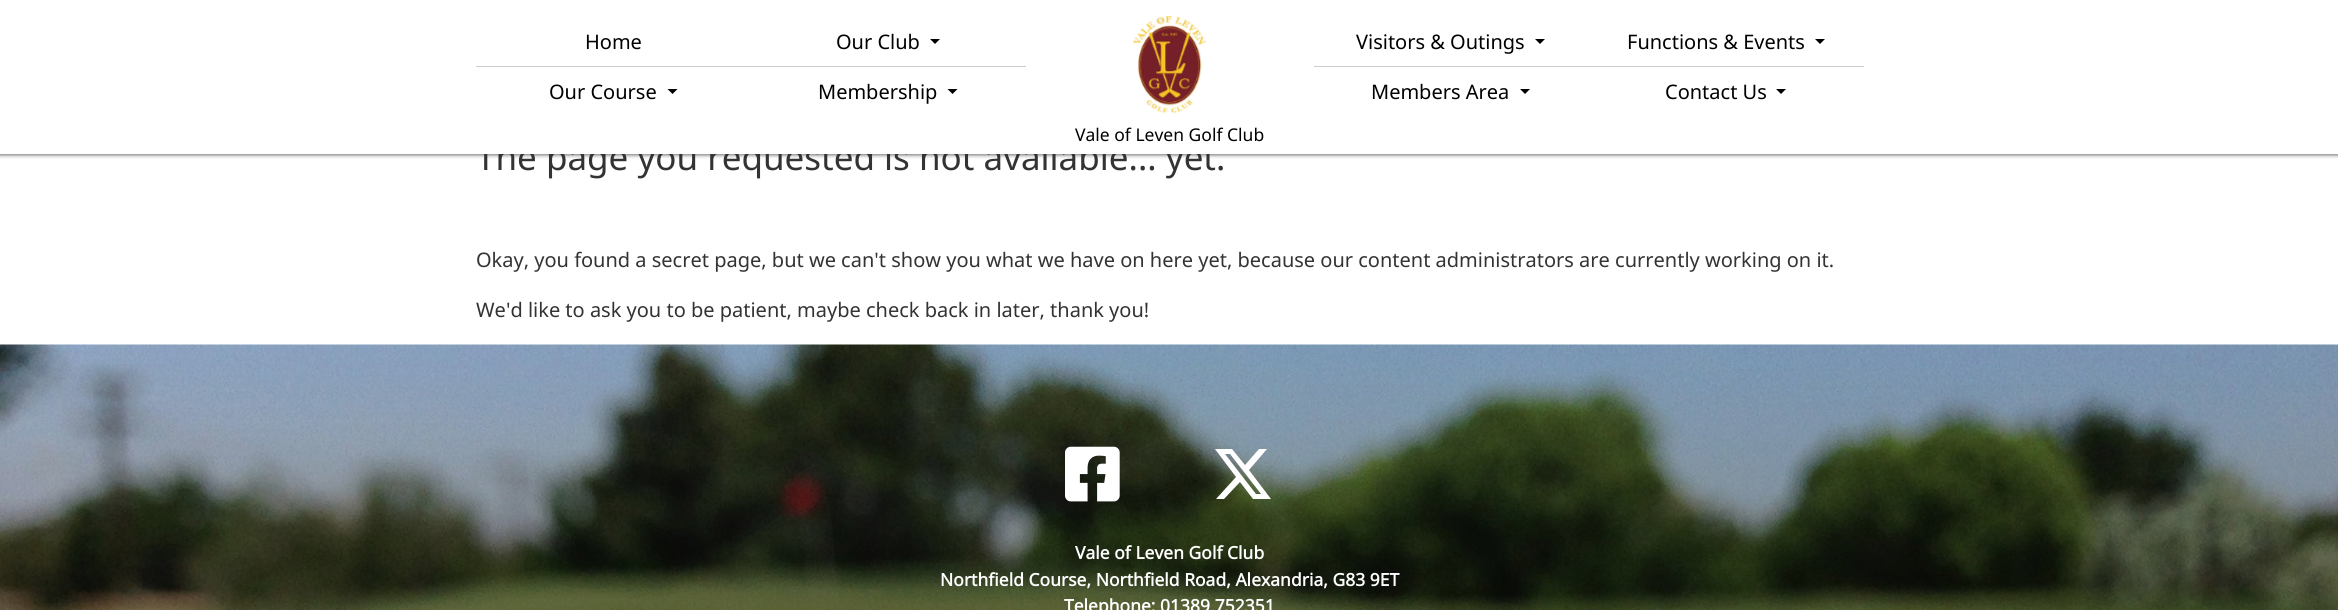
import math
import cairo

surface = cairo.ImageSurface(cairo.FORMAT_RGB24, 2338, 610)
ctx = cairo.Context(surface)
options = cairo.FontOptions()
options.set_hint_metrics(cairo.HINT_METRICS_OFF)
options.set_hint_style(cairo.HINT_STYLE_NONE)
ctx.set_font_options(options)
ctx.set_miter_limit(4)


def round_rect(x, y, w, h, r):
    ctx.new_sub_path()
    for i, (u, v) in enumerate([(x + w - r, y + h - r), (x + r, y + h - r), (x + r, y + r), (x + w - r, y + r)]):
        ctx.arc(u, v, r, i * math.pi / 2, (i + 1) * math.pi / 2)
    ctx.close_path()


def shadow(x, y, w, h, r, blur, alpha):
    ctx.push_group_with_content(cairo.CONTENT_ALPHA)
    ctx.set_operator(cairo.OPERATOR_SOURCE)
    for i in range(15, -16, -2):
        e = blur * i / 6
        if min(w, h) + 2 * e > 0:
            ctx.set_source_rgba(0, 0, 0, alpha * math.erfc((i - 1) / 8.5) / 2)
            round_rect(x - e, y - e, w + 2 * e, h + 2 * e, max(0, min(r + e + blur * .6, min(w, h) / 2 + e)))
            ctx.fill()
    ctx.mask(ctx.pop_group())


def picture(path, x, y, w, h):
    ctx.save()
    ctx.set_source_surface(cairo.ImageSurface.create_from_png(path), x, y)
    ctx.rectangle(x, y, w, h)
    ctx.fill()
    ctx.restore()


ctx.set_source_rgb(1, 1, 1)
ctx.paint()
ctx.set_source_rgb(0.4, 0.4, 0.4)
shadow(-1, -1, 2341, 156, 0, 2, 1)
ctx.select_font_face("Noto Sans")
ctx.set_font_size(35)
ctx.set_source_rgb(0.2, 0.2, 0.2)
ctx.move_to(476, 170)
ctx.show_text("The page you requested is not available... yet.")
ctx.set_source_rgb(1, 1, 1)
ctx.rectangle(0, 0, 2338, 154)
ctx.fill()
ctx.set_source_rgb(0.8, 0.8, 0.8)
ctx.rectangle(476, 66, 550, 1)
ctx.fill()
ctx.set_font_size(20)
ctx.set_source_rgb(0, 0, 0)
ctx.move_to(585, 49)
ctx.show_text("Home")
ctx.move_to(836, 49)
ctx.show_text("Our Club")
ctx.new_path()
ctx.move_to(930, 39)
ctx.line_to(940, 39)
ctx.line_to(935, 44)
ctx.close_path()
ctx.fill()
picture("img1.png", 1133, 16, 74, 98)
ctx.set_source_rgb(0.8, 0.8, 0.8)
ctx.rectangle(1314, 66, 550, 1)
ctx.fill()
ctx.set_source_rgb(0, 0, 0)
ctx.move_to(1356, 49)
ctx.show_text("Visitors & Outings")
ctx.new_path()
ctx.move_to(1535, 39)
ctx.line_to(1545, 39)
ctx.line_to(1540, 44)
ctx.close_path()
ctx.fill()
ctx.move_to(1627, 49)
ctx.show_text("Functions & Events")
ctx.new_path()
ctx.move_to(1815, 39)
ctx.line_to(1825, 39)
ctx.line_to(1820, 44)
ctx.close_path()
ctx.fill()
ctx.move_to(549, 99)
ctx.show_text("Our Course")
ctx.new_path()
ctx.move_to(667.5, 89)
ctx.line_to(677.5, 89)
ctx.line_to(672.5, 94)
ctx.close_path()
ctx.fill()
ctx.move_to(818, 99)
ctx.show_text("Membership")
ctx.new_path()
ctx.move_to(947.5, 89)
ctx.line_to(957.5, 89)
ctx.line_to(952.5, 94)
ctx.close_path()
ctx.fill()
ctx.move_to(1371, 99)
ctx.show_text("Members Area")
ctx.new_path()
ctx.move_to(1520, 89)
ctx.line_to(1530, 89)
ctx.line_to(1525, 94)
ctx.close_path()
ctx.fill()
ctx.move_to(1665, 99)
ctx.show_text("Contact Us")
ctx.new_path()
ctx.move_to(1776, 89)
ctx.line_to(1786, 89)
ctx.line_to(1781, 94)
ctx.close_path()
ctx.fill()
ctx.set_font_size(17.5)
ctx.move_to(1075, 141)
ctx.show_text("Vale of Leven Golf Club")
ctx.set_font_size(20)
ctx.set_source_rgb(0.2, 0.2, 0.2)
ctx.move_to(476, 267)
ctx.show_text("Okay, you found a secret page, but we can't show you what we have on here yet, because our content administrators are currently working on it.")
ctx.move_to(476, 317)
ctx.show_text("We'd like to ask you to be patient, maybe check back in later, thank you!")
picture("img2.png", 0, 344, 2338, 266)
picture("img3.png", 1065, 446, 55, 56)
ctx.set_source_rgb(1, 1, 1)
ctx.new_path()
ctx.move_to(1259, 449)
ctx.line_to(1267, 449)
ctx.line_to(1249, 470)
ctx.line_to(1271, 499)
ctx.line_to(1253, 499)
ctx.line_to(1240, 482)
ctx.line_to(1224, 499)
ctx.line_to(1216, 499)
ctx.line_to(1236, 477)
ctx.line_to(1215, 449)
ctx.line_to(1232, 449)
ctx.line_to(1245, 465)
ctx.close_path()
ctx.move_to(1256, 494)
ctx.line_to(1261, 494)
ctx.line_to(1230, 454)
ctx.line_to(1225, 454)
ctx.close_path()
ctx.fill()
ctx.select_font_face("Noto Sans", cairo.FONT_SLANT_NORMAL, cairo.FONT_WEIGHT_BOLD)
ctx.set_font_size(17.5)
ctx.move_to(1075, 559)
ctx.show_text("Vale of Leven Golf Club")
ctx.move_to(940, 586)
ctx.show_text("Northfield Course, Northfield Road, Alexandria, G83 9ET")
ctx.move_to(1064, 612)
ctx.show_text("Telephone: 01389 752351")
surface.write_to_png("page.png")
